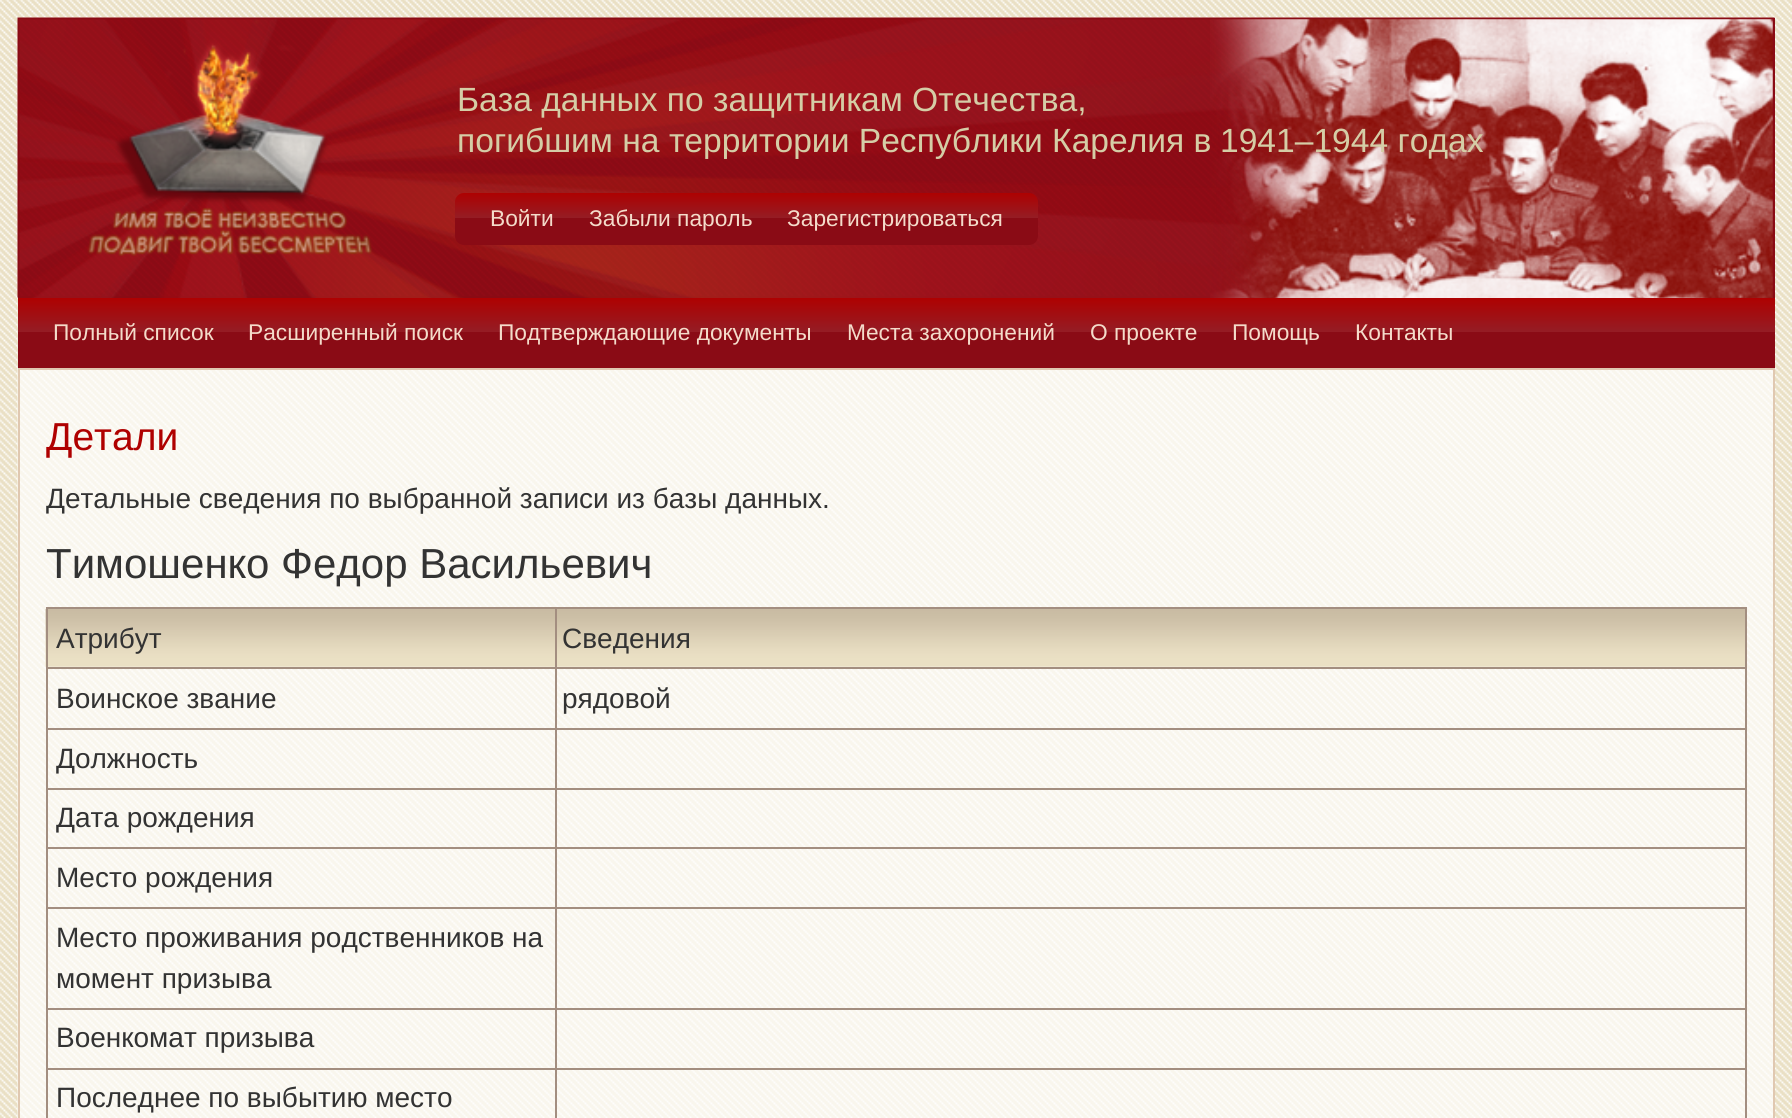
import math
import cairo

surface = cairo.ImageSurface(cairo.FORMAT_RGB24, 1792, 1118)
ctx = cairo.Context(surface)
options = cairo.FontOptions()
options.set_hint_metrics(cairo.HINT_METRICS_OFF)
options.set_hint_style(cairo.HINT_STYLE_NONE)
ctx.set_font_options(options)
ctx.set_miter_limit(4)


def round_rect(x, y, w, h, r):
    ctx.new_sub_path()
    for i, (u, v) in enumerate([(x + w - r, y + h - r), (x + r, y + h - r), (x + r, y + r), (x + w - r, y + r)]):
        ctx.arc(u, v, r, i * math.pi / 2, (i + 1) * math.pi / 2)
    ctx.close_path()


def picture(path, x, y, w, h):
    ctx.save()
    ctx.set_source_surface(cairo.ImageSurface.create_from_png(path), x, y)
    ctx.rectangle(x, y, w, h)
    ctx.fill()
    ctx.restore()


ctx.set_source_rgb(1, 1, 1)
ctx.paint()
picture("img1.png", 0, 0, 1792, 1118)
picture("img2.png", 17, 17, 1758, 281)
ctx.rectangle(19, 19, 1755, 278)
ctx.set_source_rgb(0.541, 0.043, 0.082)
ctx.stroke()
picture("img3.png", 19, 19, 1377, 279)
picture("img4.png", 1210, 19, 563, 279)
ctx.select_font_face("Liberation Sans")
ctx.set_font_size(33.6)
ctx.set_source_rgb(0.835, 0.804, 0.651)
ctx.move_to(457, 111)
ctx.show_text("База данных по защитникам Отечества,")
ctx.move_to(457, 152)
ctx.show_text("погибшим на территории Республики Карелия в")
ctx.move_to(1220, 152)
ctx.show_text("1941–1944 годах")
gradient = cairo.LinearGradient(746, 192, 746, 245)
gradient.add_color_stop_rgba(0, 0.686, 0, 0, 1)
gradient.add_color_stop_rgba(0.5, 0.58, 0.114, 0.145, 1)
gradient.add_color_stop_rgba(0.5, 0.541, 0.043, 0.082, 1)
ctx.set_source(gradient)
round_rect(455, 193, 583, 52, 9)
ctx.fill()
ctx.set_font_size(22.75)
ctx.set_source_rgb(0.957, 0.859, 0.792)
ctx.move_to(490, 226)
ctx.show_text("Войти")
ctx.move_to(589, 226)
ctx.show_text("Забыли пароль")
ctx.move_to(787, 226)
ctx.show_text("Зарегистрироваться")
picture("img5.png", 17, 367, 1756, 751)
gradient = cairo.LinearGradient(896, 297, 896, 368)
gradient.add_color_stop_rgba(0, 0.686, 0, 0, 1)
gradient.add_color_stop_rgba(0.5, 0.58, 0.114, 0.145, 1)
gradient.add_color_stop_rgba(0.5, 0.541, 0.043, 0.082, 1)
ctx.set_source(gradient)
ctx.rectangle(18, 298, 1757, 70)
ctx.fill()
ctx.set_source_rgb(0.957, 0.859, 0.792)
ctx.move_to(53, 340)
ctx.show_text("Полный список")
ctx.move_to(248, 340)
ctx.show_text("Расширенный поиск")
ctx.move_to(498, 340)
ctx.show_text("Подтверждающие документы")
ctx.move_to(847, 340)
ctx.show_text("Места захоронений")
ctx.move_to(1090, 340)
ctx.show_text("О проекте")
ctx.move_to(1232, 340)
ctx.show_text("Помощь")
ctx.move_to(1355, 340)
ctx.show_text("Контакты")
ctx.rectangle(19, 369, 1755, 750)
ctx.set_source_rgb(0.878, 0.784, 0.694)
ctx.stroke()
ctx.set_font_size(39)
ctx.set_source_rgb(0.686, 0, 0)
ctx.move_to(46, 450)
ctx.show_text("Детали")
ctx.set_font_size(28)
ctx.set_source_rgb(0.2, 0.2, 0.2)
ctx.move_to(46, 508)
ctx.show_text("Детальные сведения по выбранной записи из базы данных.")
ctx.set_font_size(42)
ctx.move_to(46, 578)
ctx.show_text("Тимошенко Федор Васильевич")
picture("img6.png", 45, 609, 1700, 58)
ctx.set_source_rgb(0.639, 0.557, 0.502)
ctx.rectangle(46, 607, 1701, 2)
ctx.fill()
ctx.rectangle(1745, 607, 2, 60)
ctx.fill()
ctx.rectangle(46, 607, 2, 60)
ctx.fill()
ctx.rectangle(555, 609, 2, 58)
ctx.fill()
ctx.set_font_size(28)
ctx.set_source_rgb(0.2, 0.2, 0.2)
ctx.move_to(56, 648)
ctx.show_text("Атрибут")
ctx.move_to(562, 648)
ctx.show_text("Сведения")
ctx.set_source_rgb(0.639, 0.557, 0.502)
ctx.rectangle(46, 667, 1701, 2)
ctx.fill()
ctx.rectangle(1745, 667, 2, 61)
ctx.fill()
ctx.rectangle(46, 667, 2, 61)
ctx.fill()
ctx.rectangle(555, 669, 2, 59)
ctx.fill()
ctx.set_source_rgb(0.2, 0.2, 0.2)
ctx.move_to(56, 708)
ctx.show_text("Воинское звание")
ctx.move_to(562, 708)
ctx.show_text("рядовой")
ctx.set_source_rgb(0.639, 0.557, 0.502)
ctx.rectangle(46, 728, 1701, 2)
ctx.fill()
ctx.rectangle(1745, 728, 2, 60)
ctx.fill()
ctx.rectangle(46, 728, 2, 60)
ctx.fill()
ctx.rectangle(555, 730, 2, 58)
ctx.fill()
ctx.set_source_rgb(0.2, 0.2, 0.2)
ctx.move_to(56, 768)
ctx.show_text("Должность")
ctx.set_source_rgb(0.639, 0.557, 0.502)
ctx.rectangle(46, 788, 1701, 2)
ctx.fill()
ctx.rectangle(1745, 788, 2, 59)
ctx.fill()
ctx.rectangle(46, 788, 2, 59)
ctx.fill()
ctx.rectangle(555, 789, 2, 58)
ctx.fill()
ctx.set_source_rgb(0.2, 0.2, 0.2)
ctx.move_to(56, 827)
ctx.show_text("Дата рождения")
ctx.set_source_rgb(0.639, 0.557, 0.502)
ctx.rectangle(46, 847, 1701, 2)
ctx.fill()
ctx.rectangle(1745, 847, 2, 60)
ctx.fill()
ctx.rectangle(46, 847, 2, 60)
ctx.fill()
ctx.rectangle(555, 849, 2, 58)
ctx.fill()
ctx.set_source_rgb(0.2, 0.2, 0.2)
ctx.move_to(56, 887)
ctx.show_text("Место рождения")
ctx.set_source_rgb(0.639, 0.557, 0.502)
ctx.rectangle(46, 907, 1701, 2)
ctx.fill()
ctx.rectangle(1745, 907, 2, 101)
ctx.fill()
ctx.rectangle(46, 907, 2, 101)
ctx.fill()
ctx.rectangle(555, 908, 2, 100)
ctx.fill()
ctx.set_source_rgb(0.2, 0.2, 0.2)
ctx.move_to(56, 947)
ctx.show_text("Место проживания родственников на")
ctx.move_to(56, 988)
ctx.show_text("момент призыва")
ctx.set_source_rgb(0.639, 0.557, 0.502)
ctx.rectangle(46, 1008, 1701, 2)
ctx.fill()
ctx.rectangle(1745, 1008, 2, 60)
ctx.fill()
ctx.rectangle(46, 1008, 2, 60)
ctx.fill()
ctx.rectangle(555, 1010, 2, 58)
ctx.fill()
ctx.set_source_rgb(0.2, 0.2, 0.2)
ctx.move_to(56, 1047)
ctx.show_text("Военкомат призыва")
ctx.set_source_rgb(0.639, 0.557, 0.502)
ctx.rectangle(46, 1068, 1701, 2)
ctx.fill()
ctx.rectangle(1745, 1068, 2, 50)
ctx.fill()
ctx.rectangle(46, 1068, 2, 50)
ctx.fill()
ctx.rectangle(555, 1069, 2, 49)
ctx.fill()
ctx.set_source_rgb(0.2, 0.2, 0.2)
ctx.move_to(56, 1107)
ctx.show_text("Последнее по выбытию место")
surface.write_to_png("page.png")
